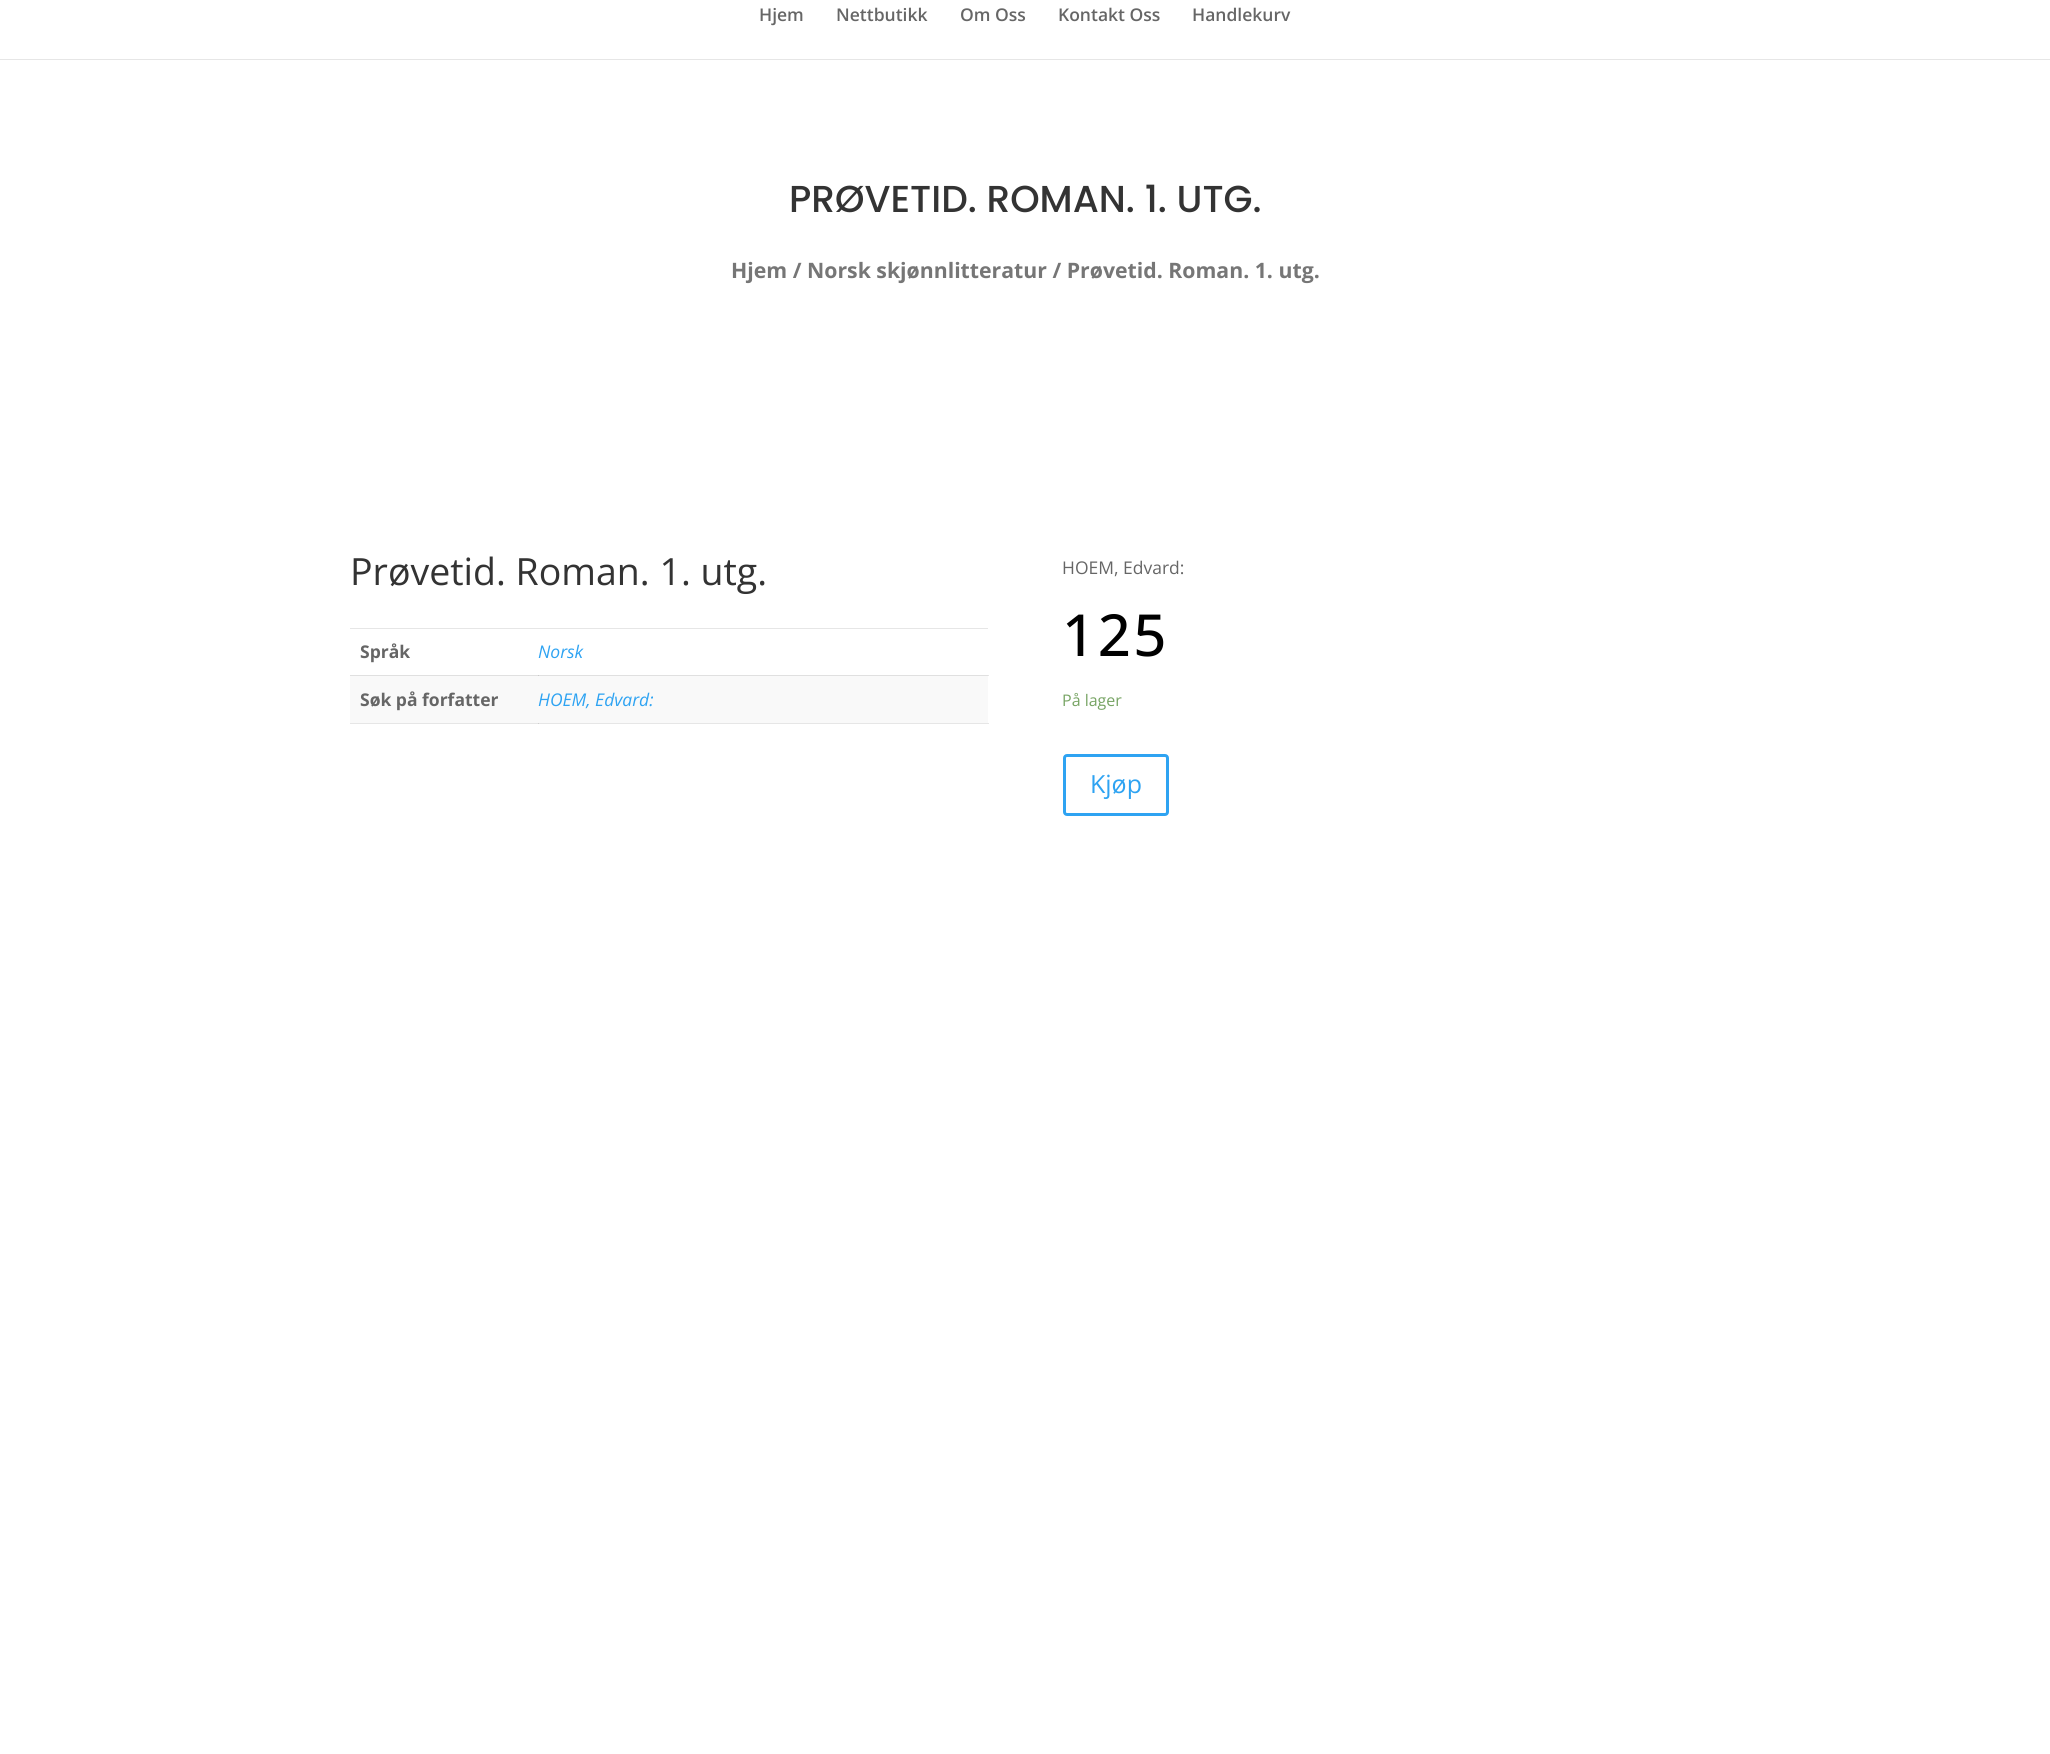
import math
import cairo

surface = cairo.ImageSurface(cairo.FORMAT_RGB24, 2050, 1754)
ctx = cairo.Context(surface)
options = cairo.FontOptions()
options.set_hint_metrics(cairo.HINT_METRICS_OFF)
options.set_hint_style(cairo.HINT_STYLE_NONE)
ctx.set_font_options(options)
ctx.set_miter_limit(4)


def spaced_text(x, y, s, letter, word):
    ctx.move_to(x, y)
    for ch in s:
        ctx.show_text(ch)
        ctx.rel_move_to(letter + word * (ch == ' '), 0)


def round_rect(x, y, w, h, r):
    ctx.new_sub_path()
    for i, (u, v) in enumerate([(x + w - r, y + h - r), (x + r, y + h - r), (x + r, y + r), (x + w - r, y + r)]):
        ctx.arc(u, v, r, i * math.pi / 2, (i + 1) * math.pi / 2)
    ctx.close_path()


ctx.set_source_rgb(1, 1, 1)
ctx.paint()
ctx.set_source_rgb(0.902, 0.902, 0.902)
ctx.rectangle(988, 675, 1, 1)
ctx.fill()
ctx.rectangle(350, 723, 639, 1)
ctx.fill()
ctx.rectangle(0, 59, 2050, 1)
ctx.fill()
ctx.select_font_face("Open Sans SemiBold")
ctx.set_font_size(17.5)
ctx.set_source_rgb(0.4, 0.4, 0.4)
ctx.move_to(759, 21)
ctx.show_text("Hjem")
ctx.move_to(836, 21)
ctx.show_text("Nettbutikk")
ctx.move_to(960, 21)
ctx.show_text("Om Oss")
ctx.move_to(1058, 21)
ctx.show_text("Kontakt Oss")
ctx.move_to(1192, 21)
ctx.show_text("Handlekurv")
ctx.select_font_face("Poppins Medium")
ctx.set_font_size(37.5)
ctx.set_source_rgb(0.2, 0.2, 0.2)
ctx.move_to(789, 212)
ctx.show_text("PRØVETID. ROMAN. 1. UTG.")
ctx.select_font_face("Open Sans", cairo.FONT_SLANT_NORMAL, cairo.FONT_WEIGHT_BOLD)
ctx.set_font_size(21.25)
ctx.set_source_rgb(0.463, 0.463, 0.463)
ctx.move_to(731, 278)
ctx.show_text("Hjem / Norsk skjønnlitteratur / Prøvetid. Roman. 1. utg.")
ctx.select_font_face("Open Sans")
ctx.set_font_size(37.5)
ctx.set_source_rgb(0.2, 0.2, 0.2)
ctx.move_to(350, 585)
ctx.show_text("Prøvetid. Roman. 1. utg.")
ctx.set_source_rgb(0.902, 0.902, 0.902)
ctx.rectangle(350, 628, 638, 1)
ctx.fill()
ctx.select_font_face("Open Sans", cairo.FONT_SLANT_NORMAL, cairo.FONT_WEIGHT_BOLD)
ctx.set_font_size(17.5)
ctx.set_source_rgb(0.4, 0.4, 0.4)
ctx.move_to(360, 658)
ctx.show_text("Språk")
ctx.select_font_face("Open Sans", cairo.FONT_SLANT_ITALIC)
ctx.set_source_rgb(0.18, 0.639, 0.949)
ctx.move_to(538, 658)
ctx.show_text("Norsk")
ctx.set_source_rgb(0.976, 0.976, 0.976)
ctx.rectangle(350, 676, 638, 47)
ctx.fill()
ctx.set_source_rgb(0.878, 0.878, 0.878)
ctx.rectangle(350, 675, 638, 1)
ctx.fill()
ctx.select_font_face("Open Sans", cairo.FONT_SLANT_NORMAL, cairo.FONT_WEIGHT_BOLD)
ctx.set_source_rgb(0.4, 0.4, 0.4)
ctx.move_to(360, 706)
ctx.show_text("Søk på forfatter")
ctx.set_source_rgb(0.792, 0.792, 0.792)
ctx.rectangle(538, 675, 1, 1)
ctx.fill()
ctx.set_source_rgb(0.812, 0.812, 0.812)
ctx.rectangle(538, 723, 1, 1)
ctx.fill()
ctx.select_font_face("Open Sans", cairo.FONT_SLANT_ITALIC)
ctx.set_source_rgb(0.18, 0.639, 0.949)
ctx.move_to(538, 706)
ctx.show_text("HOEM, Edvard:")
ctx.select_font_face("Open Sans")
ctx.set_source_rgb(0.4, 0.4, 0.4)
ctx.move_to(1062, 574)
ctx.show_text("HOEM, Edvard:")
ctx.select_font_face("Open Sans Medium")
ctx.set_font_size(58)
ctx.set_source_rgb(0, 0, 0)
spaced_text(1062, 656, "125", 2.5, 0)
ctx.select_font_face("Open Sans")
ctx.set_font_size(16)
ctx.set_source_rgb(0.467, 0.643, 0.392)
ctx.move_to(1062, 706)
ctx.show_text("På lager")
round_rect(1064.5, 755.5, 103, 59, 2.5)
ctx.set_source_rgb(0.18, 0.639, 0.949)
ctx.set_line_width(3)
ctx.stroke()
ctx.set_font_size(25)
ctx.move_to(1090, 793)
ctx.show_text("Kjøp")
surface.write_to_png("page.png")
